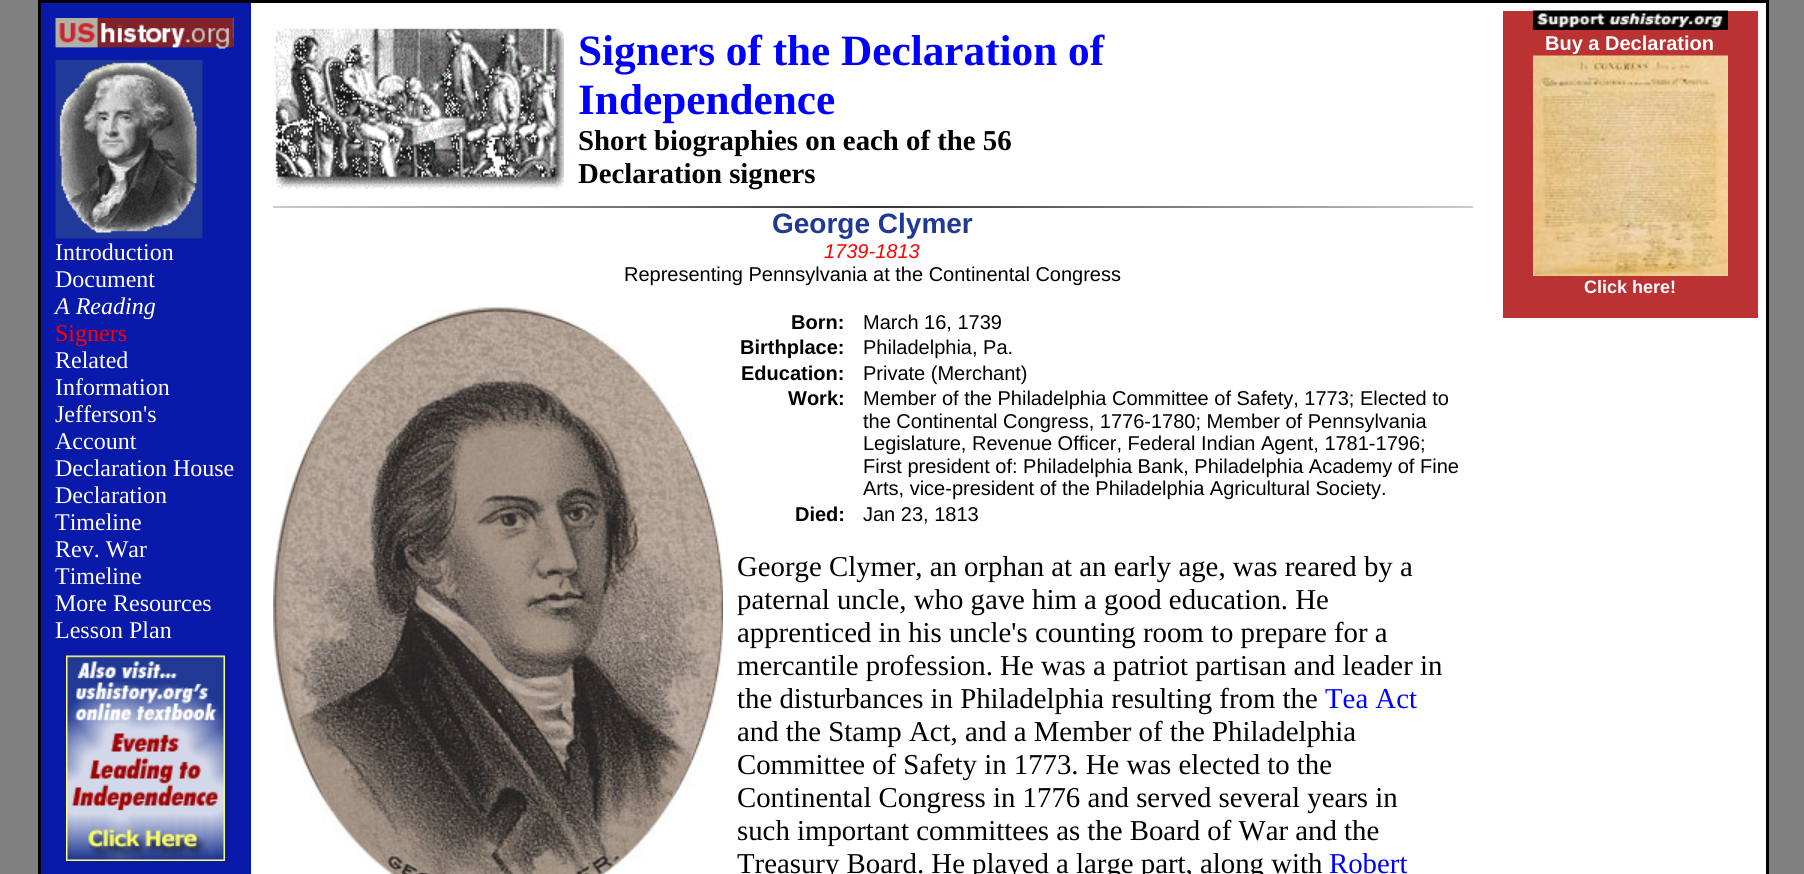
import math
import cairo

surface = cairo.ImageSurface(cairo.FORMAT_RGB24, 1804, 874)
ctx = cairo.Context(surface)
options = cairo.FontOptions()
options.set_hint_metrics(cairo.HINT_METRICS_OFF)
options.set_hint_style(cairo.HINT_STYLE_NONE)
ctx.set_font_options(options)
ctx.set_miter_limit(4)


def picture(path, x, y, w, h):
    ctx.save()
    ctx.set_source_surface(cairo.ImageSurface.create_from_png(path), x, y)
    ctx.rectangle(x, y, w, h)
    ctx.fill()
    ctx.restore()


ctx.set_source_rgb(0.502, 0.502, 0.502)
ctx.paint()
ctx.set_source_rgb(1, 1, 1)
ctx.rectangle(251, 3, 1515, 871)
ctx.fill()
ctx.rectangle(39.5, 1.5, 1728, 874)
ctx.set_source_rgb(0, 0, 0)
ctx.set_line_width(3)
ctx.stroke()
picture("img1.png", 274, 28, 290, 162)
ctx.select_font_face("Liberation Serif", cairo.FONT_SLANT_NORMAL, cairo.FONT_WEIGHT_BOLD)
ctx.set_font_size(43.25)
ctx.set_source_rgb(0, 0, 1)
ctx.move_to(578, 65)
ctx.show_text("Signers of the Declaration of")
ctx.move_to(578, 114)
ctx.show_text("Independence")
ctx.set_font_size(28.8)
ctx.set_source_rgb(0, 0, 0)
ctx.move_to(578, 150)
ctx.show_text("Short biographies on each of the 56")
ctx.move_to(578, 183)
ctx.show_text("Declaration signers")
gradient = cairo.LinearGradient(273, 206, 1473, 206)
gradient.add_color_stop_rgba(0, 0.8, 0.8, 0.8, 1)
gradient.add_color_stop_rgba(0.5, 0.2, 0.2, 0.2, 1)
gradient.add_color_stop_rgba(1, 0.8, 0.8, 0.8, 1)
ctx.set_source(gradient)
ctx.rectangle(273, 206, 1200, 2)
ctx.fill()
ctx.select_font_face("Liberation Sans", cairo.FONT_SLANT_NORMAL, cairo.FONT_WEIGHT_BOLD)
ctx.set_font_size(28)
ctx.set_source_rgb(0.129, 0.224, 0.58)
ctx.move_to(772, 233)
ctx.show_text("George Clymer")
ctx.select_font_face("Liberation Sans", cairo.FONT_SLANT_ITALIC)
ctx.set_font_size(20)
ctx.set_source_rgb(1, 0, 0)
ctx.move_to(824, 258)
ctx.show_text("1739-1813")
ctx.select_font_face("Liberation Sans")
ctx.set_source_rgb(0, 0, 0)
ctx.move_to(624, 281)
ctx.show_text("Representing Pennsylvania at the Continental Congress")
picture("img2.png", 273, 307, 450, 567)
ctx.select_font_face("Liberation Sans", cairo.FONT_SLANT_NORMAL, cairo.FONT_WEIGHT_BOLD)
ctx.move_to(791, 329)
ctx.show_text("Born:")
ctx.select_font_face("Liberation Sans")
ctx.move_to(863, 329)
ctx.show_text("March 16, 1739")
ctx.select_font_face("Liberation Sans", cairo.FONT_SLANT_NORMAL, cairo.FONT_WEIGHT_BOLD)
ctx.move_to(740, 354)
ctx.show_text("Birthplace:")
ctx.select_font_face("Liberation Sans")
ctx.move_to(863, 354)
ctx.show_text("Philadelphia, Pa.")
ctx.select_font_face("Liberation Sans", cairo.FONT_SLANT_NORMAL, cairo.FONT_WEIGHT_BOLD)
ctx.move_to(741, 380)
ctx.show_text("Education:")
ctx.select_font_face("Liberation Sans")
ctx.move_to(863, 380)
ctx.show_text("Private (Merchant)")
ctx.select_font_face("Liberation Sans", cairo.FONT_SLANT_NORMAL, cairo.FONT_WEIGHT_BOLD)
ctx.move_to(788, 405)
ctx.show_text("Work:")
ctx.select_font_face("Liberation Sans")
ctx.move_to(863, 405)
ctx.show_text("Member of the Philadelphia Committee of Safety, 1773; Elected to")
ctx.move_to(863, 428)
ctx.show_text("the Continental Congress, 1776-1780; Member of Pennsylvania")
ctx.move_to(863, 450)
ctx.show_text("Legislature, Revenue Officer, Federal Indian Agent, 1781-1796;")
ctx.move_to(863, 473)
ctx.show_text("First president of: Philadelphia Bank, Philadelphia Academy of Fine")
ctx.move_to(863, 495)
ctx.show_text("Arts, vice-president of the Philadelphia Agricultural Society.")
ctx.select_font_face("Liberation Sans", cairo.FONT_SLANT_NORMAL, cairo.FONT_WEIGHT_BOLD)
ctx.move_to(795, 521)
ctx.show_text("Died:")
ctx.select_font_face("Liberation Sans")
ctx.move_to(863, 521)
ctx.show_text("Jan 23, 1813")
ctx.select_font_face("Liberation Serif")
ctx.set_font_size(28.8)
ctx.move_to(737, 576)
ctx.show_text("George Clymer, an orphan at an early age, was reared by a")
ctx.move_to(737, 609)
ctx.show_text("paternal uncle, who gave him a good education. He")
ctx.move_to(737, 642)
ctx.show_text("apprenticed in his uncle's counting room to prepare for a")
ctx.move_to(737, 675)
ctx.show_text("mercantile profession. He was a patriot partisan and leader in")
ctx.move_to(737, 708)
ctx.show_text("the disturbances in Philadelphia resulting from the")
ctx.set_source_rgb(0, 0, 1)
ctx.move_to(1325, 708)
ctx.show_text("Tea Act")
ctx.set_source_rgb(0, 0, 0)
ctx.move_to(737, 741)
ctx.show_text("and the Stamp Act, and a Member of the Philadelphia")
ctx.move_to(737, 774)
ctx.show_text("Committee of Safety in 1773. He was elected to the")
ctx.move_to(737, 807)
ctx.show_text("Continental Congress in 1776 and served several years in")
ctx.move_to(737, 840)
ctx.show_text("such important committees as the Board of War and the")
ctx.move_to(737, 873)
ctx.show_text("Treasury Board. He played a large part, along with")
ctx.set_source_rgb(0, 0, 1)
ctx.move_to(1329, 873)
ctx.show_text("Robert")
ctx.set_source_rgb(0.729, 0.196, 0.196)
ctx.rectangle(1503, 11, 255, 307)
ctx.fill()
picture("img3.png", 1533, 10, 195, 20)
ctx.select_font_face("Liberation Sans", cairo.FONT_SLANT_NORMAL, cairo.FONT_WEIGHT_BOLD)
ctx.set_font_size(20)
ctx.set_source_rgb(1, 1, 1)
ctx.move_to(1545, 50)
ctx.show_text("Buy a Declaration")
picture("img4.png", 1533, 55, 195, 221)
ctx.set_font_size(18)
ctx.move_to(1584, 293)
ctx.show_text("Click here!")
ctx.set_source_rgb(0.039, 0.098, 0.667)
ctx.rectangle(41, 3, 210, 871)
ctx.fill()
picture("img5.png", 55, 18, 179, 31)
picture("img6.png", 55, 60, 148, 179)
ctx.select_font_face("Liberation Serif")
ctx.set_font_size(24)
ctx.set_source_rgb(1, 1, 1)
ctx.move_to(55, 260)
ctx.show_text("Introduction")
ctx.move_to(55, 287)
ctx.show_text("Document")
ctx.select_font_face("Liberation Serif", cairo.FONT_SLANT_ITALIC)
ctx.move_to(55, 314)
ctx.show_text("A Reading")
ctx.select_font_face("Liberation Serif")
ctx.set_source_rgb(1, 0, 0)
ctx.move_to(55, 341)
ctx.show_text("Signers")
ctx.set_source_rgb(1, 1, 1)
ctx.move_to(55, 368)
ctx.show_text("Related")
ctx.move_to(55, 395)
ctx.show_text("Information")
ctx.move_to(55, 422)
ctx.show_text("Jefferson's")
ctx.move_to(55, 449)
ctx.show_text("Account")
ctx.move_to(55, 476)
ctx.show_text("Declaration House")
ctx.move_to(55, 503)
ctx.show_text("Declaration")
ctx.move_to(55, 530)
ctx.show_text("Timeline")
ctx.move_to(55, 557)
ctx.show_text("Rev. War")
ctx.move_to(55, 584)
ctx.show_text("Timeline")
ctx.move_to(55, 611)
ctx.show_text("More Resources")
ctx.move_to(55, 638)
ctx.show_text("Lesson Plan")
picture("img7.png", 66, 655, 159, 206)
surface.write_to_png("page.png")
